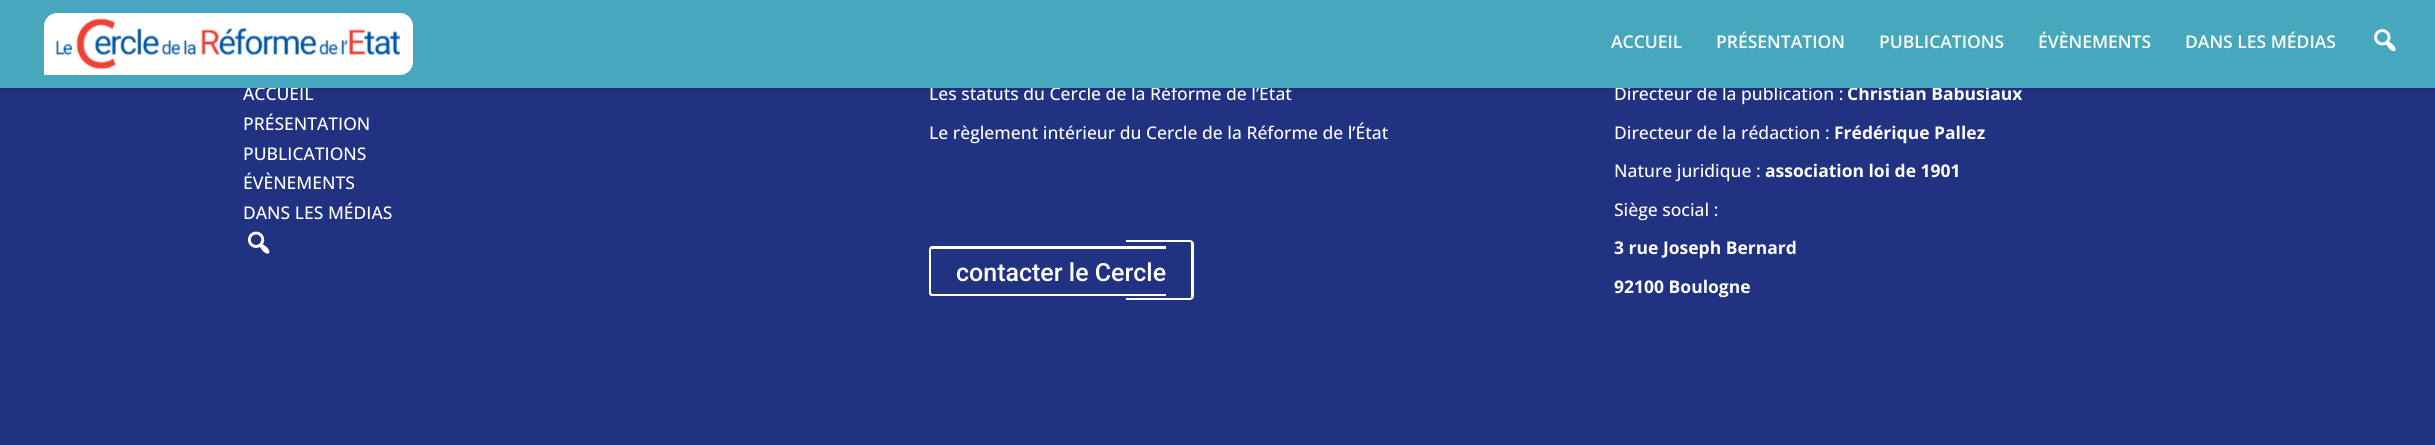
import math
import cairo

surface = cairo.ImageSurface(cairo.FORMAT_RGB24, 2435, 445)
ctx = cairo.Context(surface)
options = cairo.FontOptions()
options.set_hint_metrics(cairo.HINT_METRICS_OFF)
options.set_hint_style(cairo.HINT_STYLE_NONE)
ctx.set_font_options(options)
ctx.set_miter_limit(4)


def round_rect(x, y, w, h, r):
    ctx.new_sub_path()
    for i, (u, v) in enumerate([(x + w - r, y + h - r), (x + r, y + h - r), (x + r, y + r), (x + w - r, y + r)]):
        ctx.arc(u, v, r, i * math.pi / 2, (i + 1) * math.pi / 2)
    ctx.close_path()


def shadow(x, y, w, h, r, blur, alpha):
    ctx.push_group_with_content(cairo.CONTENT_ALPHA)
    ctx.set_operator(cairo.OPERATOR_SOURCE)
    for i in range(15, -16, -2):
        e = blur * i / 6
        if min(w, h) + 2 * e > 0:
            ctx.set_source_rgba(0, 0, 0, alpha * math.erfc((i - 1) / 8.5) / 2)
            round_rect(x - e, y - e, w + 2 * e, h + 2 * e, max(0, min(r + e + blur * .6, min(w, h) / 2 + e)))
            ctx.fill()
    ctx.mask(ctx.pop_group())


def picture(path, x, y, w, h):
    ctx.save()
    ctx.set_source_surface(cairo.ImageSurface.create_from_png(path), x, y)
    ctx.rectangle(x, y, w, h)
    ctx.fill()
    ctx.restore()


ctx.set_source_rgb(0.129, 0.196, 0.51)
ctx.paint()
ctx.set_source_rgb(0, 0, 0)
shadow(0, 0, 2435, 88, 0, 4.5, 0.1)
ctx.select_font_face("Open Sans Medium")
ctx.set_font_size(17.5)
ctx.set_source_rgb(1, 1, 1)
ctx.move_to(243, 100)
ctx.show_text("ACCUEIL")
ctx.move_to(929, 100)
ctx.show_text("Les statuts du Cercle de la Réforme de l’État")
ctx.move_to(1614, 100)
ctx.show_text("Directeur de la publication :")
ctx.select_font_face("Open Sans", cairo.FONT_SLANT_NORMAL, cairo.FONT_WEIGHT_BOLD)
ctx.move_to(1847, 100)
ctx.show_text("Christian Babusiaux")
ctx.set_source_rgb(0.278, 0.659, 0.741)
ctx.rectangle(0, 0, 2435, 88)
ctx.fill()
ctx.set_source_rgb(1, 1, 1)
ctx.new_path()
ctx.move_to(57, 13)
ctx.line_to(400, 13)
ctx.curve_to(407, 13, 413, 19, 413, 26)
ctx.line_to(413, 62)
ctx.curve_to(413, 69, 407, 75, 400, 75)
ctx.line_to(44, 75)
ctx.line_to(44, 26)
ctx.curve_to(44, 19, 50, 13, 57, 13)
ctx.close_path()
ctx.fill()
picture("img1.png", 55, 18, 346, 52)
ctx.select_font_face("Open Sans SemiBold")
ctx.move_to(1611, 48)
ctx.show_text("ACCUEIL")
ctx.move_to(1716, 48)
ctx.show_text("PRÉSENTATION")
ctx.move_to(1879, 48)
ctx.show_text("PUBLICATIONS")
ctx.move_to(2038, 48)
ctx.show_text("ÉVÈNEMENTS")
ctx.move_to(2185, 48)
ctx.show_text("DANS LES MÉDIAS")
picture("img2.png", 2374, 29, 22, 23)
ctx.select_font_face("Open Sans Medium")
ctx.move_to(243, 130)
ctx.show_text("PRÉSENTATION")
ctx.move_to(243, 160)
ctx.show_text("PUBLICATIONS")
ctx.move_to(243, 189)
ctx.show_text("ÉVÈNEMENTS")
ctx.move_to(243, 219)
ctx.show_text("DANS LES MÉDIAS")
picture("img3.png", 247, 231, 23, 23)
ctx.move_to(929, 139)
ctx.show_text("Le règlement intérieur du Cercle de la Réforme de l’État")
ctx.set_fill_rule(cairo.FILL_RULE_EVEN_ODD)
ctx.new_path()
ctx.move_to(932, 246)
ctx.line_to(1166, 246)
ctx.line_to(1166, 296)
ctx.line_to(932, 296)
ctx.curve_to(930, 296, 929, 295, 929, 292)
ctx.line_to(929, 250)
ctx.curve_to(929, 248, 930, 246, 932, 246)
ctx.close_path()
ctx.move_to(932, 249)
ctx.line_to(1166, 249)
ctx.line_to(1166, 294)
ctx.line_to(932, 294)
ctx.curve_to(932, 294, 931, 293, 931, 292)
ctx.line_to(931, 250)
ctx.curve_to(931, 249, 932, 249, 932, 249)
ctx.close_path()
ctx.fill()
ctx.new_path()
ctx.move_to(1126, 240)
ctx.line_to(1190, 240)
ctx.curve_to(1192, 240, 1194, 242, 1194, 244)
ctx.line_to(1194, 296)
ctx.curve_to(1194, 298, 1192, 300, 1190, 300)
ctx.line_to(1126, 300)
ctx.close_path()
ctx.move_to(1126, 242)
ctx.line_to(1190, 242)
ctx.curve_to(1191, 242, 1191, 243, 1191, 244)
ctx.line_to(1191, 296)
ctx.curve_to(1191, 297, 1191, 298, 1190, 298)
ctx.line_to(1126, 298)
ctx.close_path()
ctx.fill()
ctx.select_font_face("Roboto Medium")
ctx.set_font_size(25)
ctx.move_to(956, 281)
ctx.show_text("contacter le Cercle")
ctx.select_font_face("Open Sans Medium")
ctx.set_font_size(17.5)
ctx.move_to(1614, 139)
ctx.show_text("Directeur de la rédaction :")
ctx.select_font_face("Open Sans", cairo.FONT_SLANT_NORMAL, cairo.FONT_WEIGHT_BOLD)
ctx.move_to(1834, 139)
ctx.show_text("Frédérique Pallez")
ctx.select_font_face("Open Sans Medium")
ctx.move_to(1614, 177)
ctx.show_text("Nature juridique :")
ctx.select_font_face("Open Sans", cairo.FONT_SLANT_NORMAL, cairo.FONT_WEIGHT_BOLD)
ctx.move_to(1765, 177)
ctx.show_text("association loi de 1901")
ctx.select_font_face("Open Sans Medium")
ctx.move_to(1614, 216)
ctx.show_text("Siège social :")
ctx.select_font_face("Open Sans", cairo.FONT_SLANT_NORMAL, cairo.FONT_WEIGHT_BOLD)
ctx.move_to(1614, 254)
ctx.show_text("3 rue Joseph Bernard")
ctx.move_to(1614, 293)
ctx.show_text("92100 Boulogne")
surface.write_to_png("page.png")
